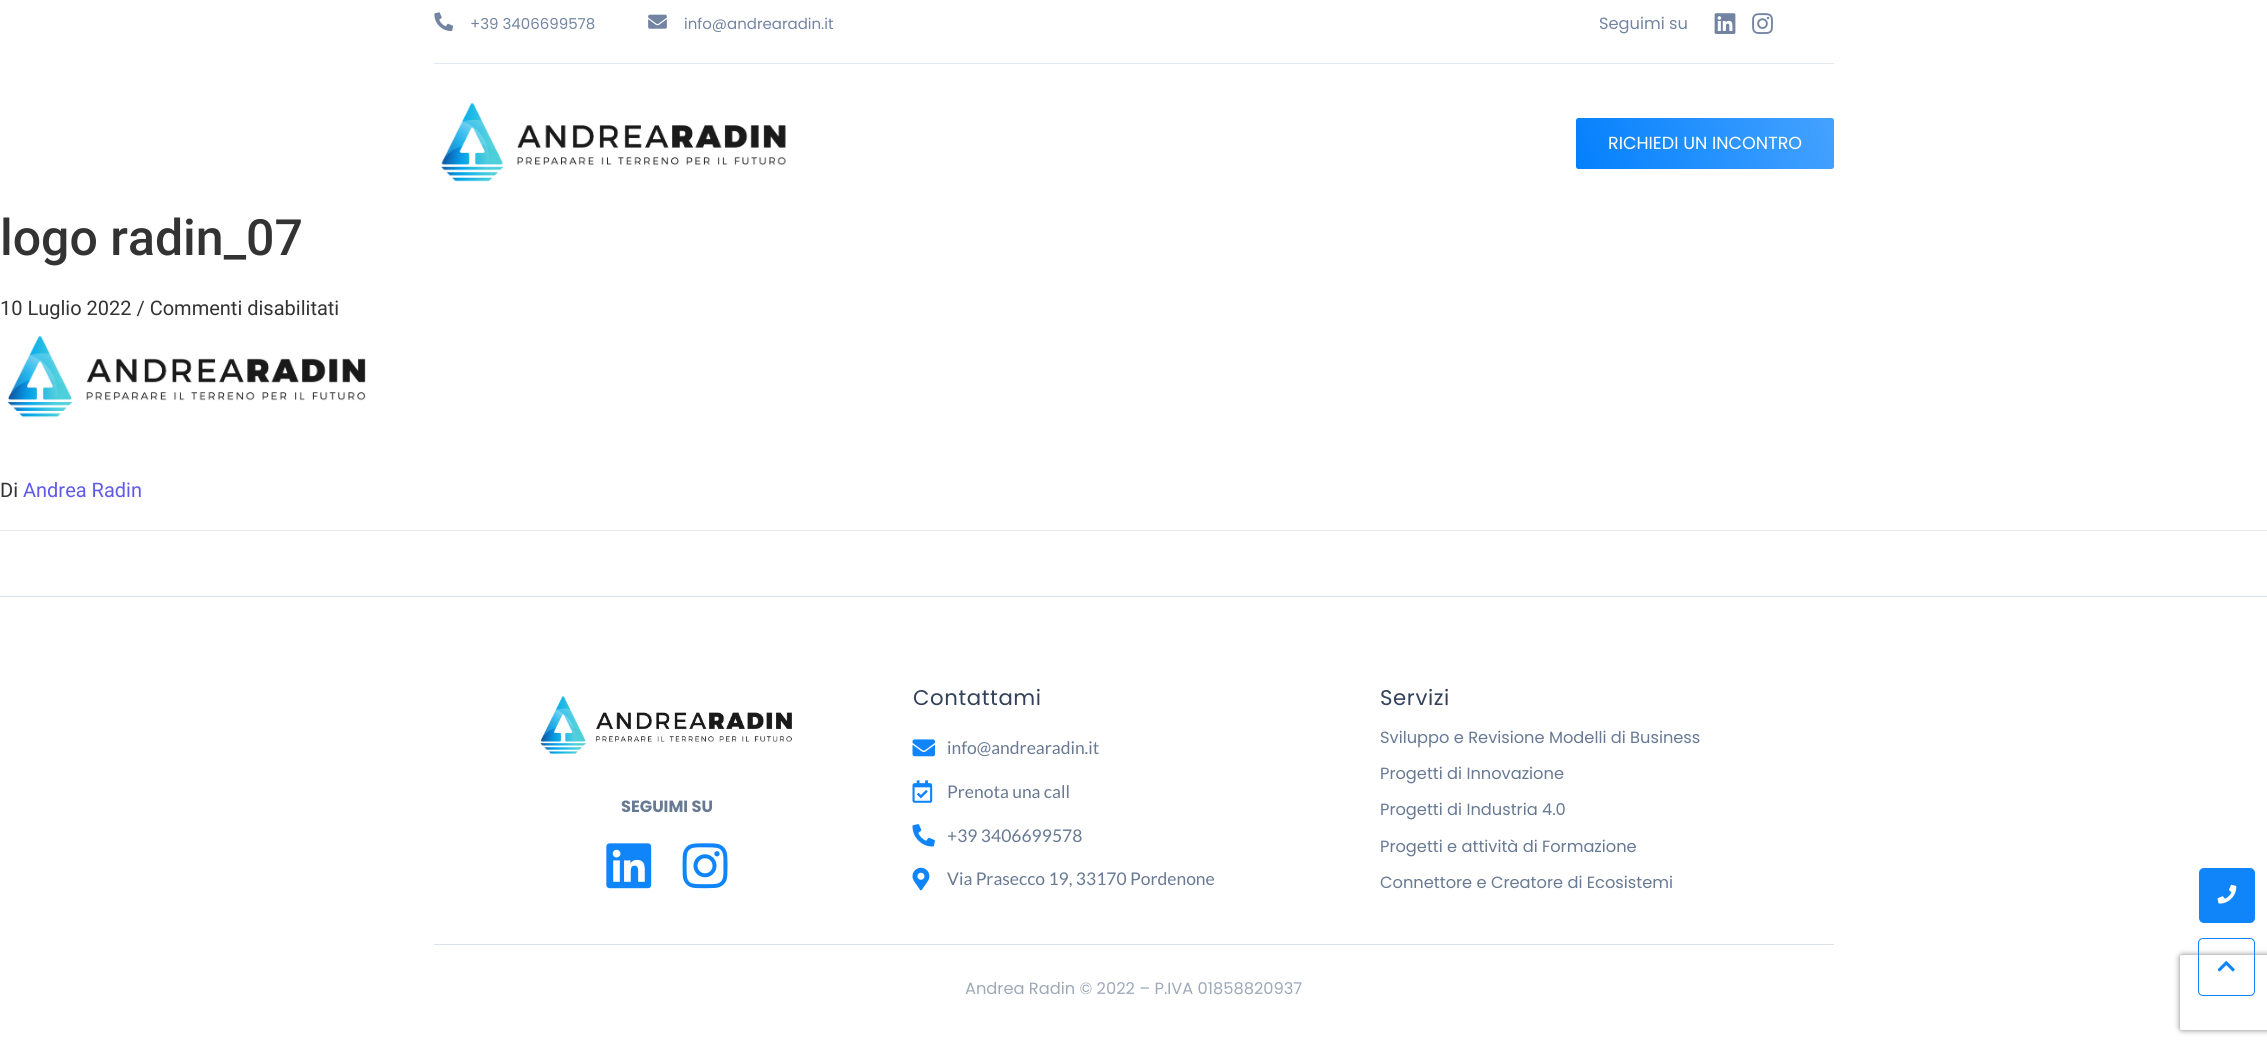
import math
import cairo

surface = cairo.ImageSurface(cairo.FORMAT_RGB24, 2267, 1047)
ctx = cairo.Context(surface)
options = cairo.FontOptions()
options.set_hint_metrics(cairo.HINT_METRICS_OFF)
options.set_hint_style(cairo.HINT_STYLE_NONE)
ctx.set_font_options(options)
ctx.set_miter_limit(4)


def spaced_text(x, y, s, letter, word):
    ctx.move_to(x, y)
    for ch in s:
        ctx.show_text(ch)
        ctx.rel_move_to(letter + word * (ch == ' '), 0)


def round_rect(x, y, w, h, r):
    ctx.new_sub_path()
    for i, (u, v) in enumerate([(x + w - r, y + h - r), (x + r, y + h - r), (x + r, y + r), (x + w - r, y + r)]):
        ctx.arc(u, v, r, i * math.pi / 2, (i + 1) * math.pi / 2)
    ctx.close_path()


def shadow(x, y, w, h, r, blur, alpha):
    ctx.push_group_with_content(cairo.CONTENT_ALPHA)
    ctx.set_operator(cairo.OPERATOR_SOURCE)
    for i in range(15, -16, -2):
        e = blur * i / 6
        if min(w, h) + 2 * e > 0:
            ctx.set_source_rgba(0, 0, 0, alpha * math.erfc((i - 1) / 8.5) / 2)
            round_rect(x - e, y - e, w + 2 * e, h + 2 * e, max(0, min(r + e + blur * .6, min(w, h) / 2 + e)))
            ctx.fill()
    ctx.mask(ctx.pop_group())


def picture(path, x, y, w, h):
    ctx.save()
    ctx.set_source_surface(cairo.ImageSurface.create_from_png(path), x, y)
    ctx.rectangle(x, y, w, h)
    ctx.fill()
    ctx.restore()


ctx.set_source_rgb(1, 1, 1)
ctx.paint()
picture("img1.png", 434, 12, 20, 20)
ctx.select_font_face("Poppins")
ctx.set_font_size(15)
ctx.set_source_rgb(0.451, 0.518, 0.635)
ctx.move_to(470, 29)
ctx.show_text("+39 3406699578")
picture("img2.png", 648, 14, 19, 15)
ctx.move_to(684, 29)
ctx.show_text("info@andrearadin.it")
ctx.set_font_size(16.25)
ctx.move_to(1599, 29)
ctx.show_text("Seguimi su")
picture("img3.png", 1714, 13, 22, 21)
picture("img4.png", 1752, 13, 21, 21)
ctx.set_source_rgb(0.886, 0.914, 0.941)
ctx.rectangle(434, 63, 1400, 1)
ctx.fill()
picture("img5.png", 441, 102, 345, 80)
gradient = cairo.LinearGradient(1583, 188, 1827, 99)
gradient.add_color_stop_rgba(0, 0.016, 0.502, 0.988, 1)
gradient.add_color_stop_rgba(1, 0.271, 0.635, 1, 1)
ctx.set_source(gradient)
round_rect(1576, 118, 258, 51, 2.5)
ctx.fill()
ctx.set_font_size(17.5)
ctx.set_source_rgb(1, 1, 1)
ctx.move_to(1608, 149)
ctx.show_text("RICHIEDI UN INCONTRO")
ctx.select_font_face("Roboto Medium")
ctx.set_font_size(50)
ctx.set_source_rgb(0.2, 0.2, 0.2)
ctx.move_to(0, 255)
ctx.show_text("logo radin_07")
ctx.select_font_face("Roboto")
ctx.set_font_size(20)
ctx.move_to(0, 315)
ctx.show_text("10 Luglio 2022 / Commenti disabilitati")
picture("img6.png", 7, 335, 359, 83)
ctx.set_source_rgb(0.91, 0.91, 0.91)
ctx.rectangle(0, 530, 2267, 1)
ctx.fill()
ctx.set_source_rgb(0.2, 0.2, 0.2)
ctx.move_to(0, 497)
ctx.show_text("Di")
ctx.set_source_rgb(0.376, 0.357, 0.898)
ctx.move_to(23, 497)
ctx.show_text("Andrea Radin")
ctx.set_source_rgb(0.863, 0.886, 0.914)
ctx.rectangle(0, 596, 2267, 1)
ctx.fill()
picture("img7.png", 540, 696, 252, 58)
ctx.select_font_face("Poppins", cairo.FONT_SLANT_NORMAL, cairo.FONT_WEIGHT_BOLD)
ctx.set_font_size(16.25)
ctx.set_source_rgb(0.404, 0.475, 0.576)
ctx.move_to(621, 812)
ctx.show_text("SEGUIMI SU")
picture("img8.png", 606, 843, 46, 46)
picture("img9.png", 682, 843, 46, 46)
ctx.select_font_face("Poppins")
ctx.set_font_size(21.25)
ctx.set_source_rgb(0.196, 0.251, 0.349)
spaced_text(913, 705, "Contattami", 0.6, 0)
picture("img10.png", 912, 739, 23, 18)
ctx.select_font_face("Lato")
ctx.set_font_size(17.5)
ctx.set_source_rgb(0.404, 0.475, 0.576)
ctx.move_to(947, 754)
ctx.show_text("info@andrearadin.it")
picture("img11.png", 912, 780, 21, 23)
ctx.move_to(947, 798)
ctx.show_text("Prenota una call")
picture("img12.png", 912, 824, 23, 23)
ctx.move_to(947, 842)
ctx.show_text("+39 3406699578")
picture("img13.png", 912, 867, 18, 24)
ctx.move_to(947, 885)
ctx.show_text("Via Prasecco 19, 33170 Pordenone")
ctx.select_font_face("Poppins")
ctx.set_font_size(21.25)
ctx.set_source_rgb(0.196, 0.251, 0.349)
spaced_text(1380, 705, "Servizi", 0.6, 0)
ctx.set_font_size(16.25)
ctx.set_source_rgb(0.404, 0.475, 0.576)
ctx.move_to(1380, 743)
ctx.show_text("Sviluppo e Revisione Modelli di Business")
ctx.move_to(1380, 779)
ctx.show_text("Progetti di Innovazione")
ctx.move_to(1380, 815)
ctx.show_text("Progetti di Industria 4.0")
ctx.move_to(1380, 852)
ctx.show_text("Progetti e attività di Formazione")
ctx.move_to(1380, 888)
ctx.show_text("Connettore e Creatore di Ecosistemi")
ctx.set_source_rgb(0.863, 0.886, 0.914)
ctx.rectangle(434, 944, 1400, 1)
ctx.fill()
ctx.set_source_rgb(0.62, 0.663, 0.722)
ctx.move_to(965, 994)
ctx.show_text("Andrea Radin © 2022 – P.IVA 01858820937")
ctx.set_source_rgb(0.063, 0.522, 0.98)
round_rect(2199, 868, 56, 55, 5)
ctx.fill()
picture("img14.png", 2217, 884, 20, 20)
ctx.save()
ctx.set_fill_rule(cairo.FILL_RULE_EVEN_ODD)
ctx.new_path()
ctx.move_to(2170, 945)
ctx.line_to(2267, 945)
ctx.line_to(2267, 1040)
ctx.line_to(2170, 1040)
ctx.close_path()
ctx.move_to(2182.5, 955)
ctx.line_to(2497.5, 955)
ctx.curve_to(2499, 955, 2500, 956, 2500, 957.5)
ctx.line_to(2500, 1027.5)
ctx.curve_to(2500, 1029, 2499, 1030, 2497.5, 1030)
ctx.line_to(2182.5, 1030)
ctx.curve_to(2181, 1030, 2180, 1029, 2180, 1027.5)
ctx.line_to(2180, 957.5)
ctx.curve_to(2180, 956, 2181, 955, 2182.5, 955)
ctx.close_path()
ctx.clip()
ctx.set_source_rgb(0.502, 0.502, 0.502)
shadow(2180, 955, 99, 75, 2.5, 3, 1)
ctx.restore()
round_rect(2198.5, 938.5, 56, 57, 4.5)
ctx.set_line_width(1)
ctx.stroke()
picture("img15.png", 2217, 961, 18, 11)
surface.write_to_png("page.png")
